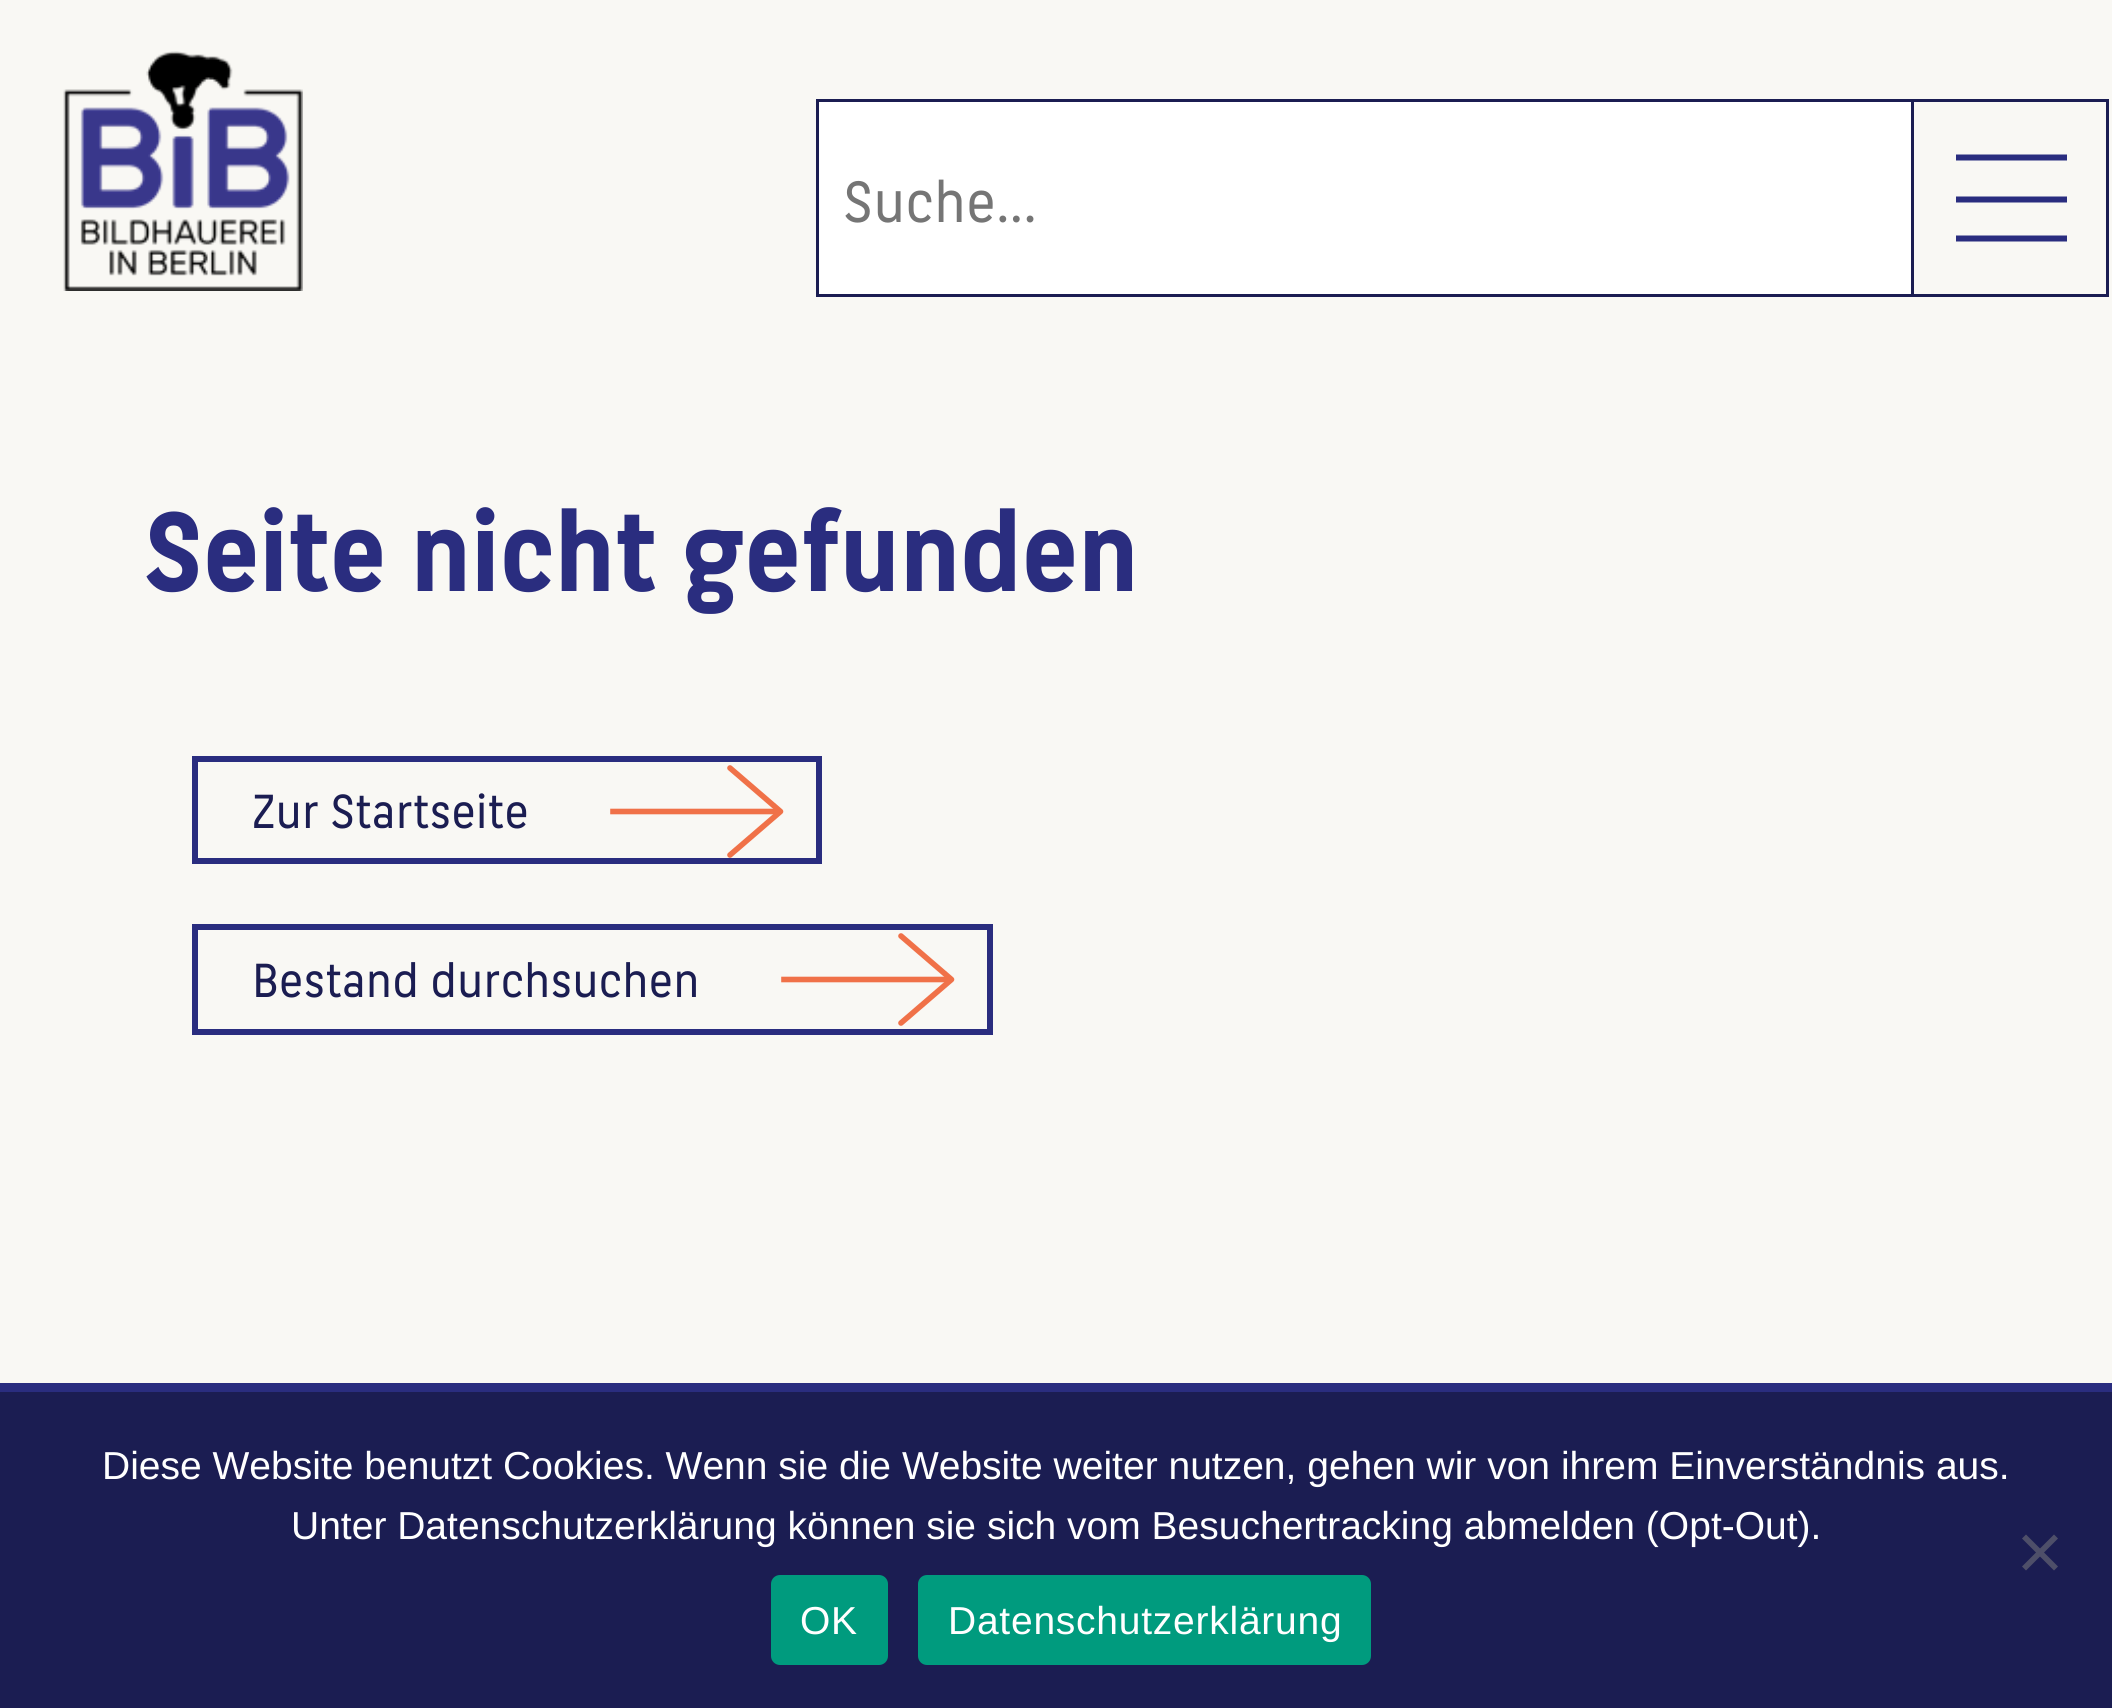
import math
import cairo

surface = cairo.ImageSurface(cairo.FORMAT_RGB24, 2112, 1708)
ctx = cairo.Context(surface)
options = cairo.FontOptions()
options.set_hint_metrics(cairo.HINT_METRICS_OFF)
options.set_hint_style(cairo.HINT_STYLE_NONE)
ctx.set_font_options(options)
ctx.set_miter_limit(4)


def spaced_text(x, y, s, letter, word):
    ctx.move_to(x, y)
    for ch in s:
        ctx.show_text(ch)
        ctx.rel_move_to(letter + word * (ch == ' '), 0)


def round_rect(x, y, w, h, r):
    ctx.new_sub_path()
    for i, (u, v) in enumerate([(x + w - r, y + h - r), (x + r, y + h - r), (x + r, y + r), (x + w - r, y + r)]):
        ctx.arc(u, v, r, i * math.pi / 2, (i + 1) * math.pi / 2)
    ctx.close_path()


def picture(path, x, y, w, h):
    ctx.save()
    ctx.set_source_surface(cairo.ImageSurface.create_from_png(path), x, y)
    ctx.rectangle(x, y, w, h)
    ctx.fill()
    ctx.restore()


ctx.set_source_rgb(0.973, 0.969, 0.957)
ctx.paint()
picture("img1.png", 63, 51, 240, 240)
ctx.set_source_rgb(1, 1, 1)
ctx.rectangle(819, 102, 1092, 192)
ctx.fill()
ctx.set_source_rgb(0.106, 0.114, 0.322)
ctx.rectangle(816, 99, 1098, 3)
ctx.fill()
ctx.rectangle(816, 294, 1098, 3)
ctx.fill()
ctx.rectangle(816, 99, 3, 198)
ctx.fill()
ctx.select_font_face("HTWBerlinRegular")
ctx.set_font_size(62)
ctx.set_source_rgb(0.459, 0.459, 0.459)
ctx.move_to(843, 222)
ctx.show_text("Suche...")
ctx.new_path()
ctx.move_to(1959, 157.5)
ctx.line_to(2064, 157.5)
ctx.set_source_rgb(0.165, 0.176, 0.498)
ctx.set_line_width(6)
ctx.set_line_cap(cairo.LINE_CAP_SQUARE)
ctx.stroke()
ctx.new_path()
ctx.move_to(1959, 199.5)
ctx.line_to(2064, 199.5)
ctx.stroke()
ctx.new_path()
ctx.move_to(1959, 238.5)
ctx.line_to(2064, 238.5)
ctx.stroke()
ctx.rectangle(1912.5, 100.5, 195, 195)
ctx.set_source_rgb(0.106, 0.114, 0.322)
ctx.set_line_width(3)
ctx.set_line_cap(cairo.LINE_CAP_BUTT)
ctx.stroke()
ctx.select_font_face("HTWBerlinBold", cairo.FONT_SLANT_NORMAL, cairo.FONT_WEIGHT_BOLD)
ctx.set_font_size(120)
ctx.set_source_rgb(0.165, 0.176, 0.498)
ctx.move_to(144, 591)
ctx.show_text("Seite nicht gefunden")
ctx.new_path()
ctx.move_to(613, 811.5)
ctx.line_to(776.5, 811.5)
ctx.set_source_rgb(0.941, 0.443, 0.282)
ctx.set_line_width(5.6)
ctx.set_line_cap(cairo.LINE_CAP_SQUARE)
ctx.stroke()
ctx.new_path()
ctx.move_to(730, 768)
ctx.line_to(780.5, 811.5)
ctx.line_to(730, 855)
ctx.set_line_cap(cairo.LINE_CAP_ROUND)
ctx.set_line_join(cairo.LINE_JOIN_ROUND)
ctx.stroke()
ctx.rectangle(195, 759, 624, 102)
ctx.set_source_rgb(0.165, 0.176, 0.498)
ctx.set_line_width(6)
ctx.set_line_cap(cairo.LINE_CAP_BUTT)
ctx.set_line_join(cairo.LINE_JOIN_MITER)
ctx.stroke()
ctx.select_font_face("HTWBerlinRegular")
ctx.set_font_size(51)
ctx.set_source_rgb(0.106, 0.114, 0.322)
ctx.move_to(252, 828)
ctx.show_text("Zur Startseite")
ctx.new_path()
ctx.move_to(784, 979.5)
ctx.line_to(947.5, 979.5)
ctx.set_source_rgb(0.941, 0.443, 0.282)
ctx.set_line_width(5.6)
ctx.set_line_cap(cairo.LINE_CAP_SQUARE)
ctx.stroke()
ctx.new_path()
ctx.move_to(901, 936)
ctx.line_to(951.5, 979.5)
ctx.line_to(901, 1023)
ctx.set_line_cap(cairo.LINE_CAP_ROUND)
ctx.set_line_join(cairo.LINE_JOIN_ROUND)
ctx.stroke()
ctx.rectangle(195, 927, 795, 105)
ctx.set_source_rgb(0.165, 0.176, 0.498)
ctx.set_line_width(6)
ctx.set_line_cap(cairo.LINE_CAP_BUTT)
ctx.set_line_join(cairo.LINE_JOIN_MITER)
ctx.stroke()
ctx.set_source_rgb(0.106, 0.114, 0.322)
ctx.move_to(252, 997)
ctx.show_text("Bestand durchsuchen")
ctx.set_source_rgb(0.165, 0.176, 0.498)
ctx.rectangle(0, 1383, 2112, 9)
ctx.fill()
ctx.set_source_rgb(0.106, 0.114, 0.322)
ctx.rectangle(0, 1392, 2112, 316)
ctx.fill()
ctx.select_font_face("Liberation Sans")
ctx.set_font_size(39)
ctx.set_source_rgb(1, 1, 1)
ctx.move_to(102, 1479)
ctx.show_text("Diese Website benutzt Cookies. Wenn sie die Website weiter nutzen, gehen wir von ihrem Einverständnis aus.")
ctx.move_to(291, 1539)
ctx.show_text("Unter Datenschutzerklärung können sie sich vom Besuchertracking abmelden (Opt-Out).")
ctx.set_source_rgb(0.306, 0.31, 0.412)
ctx.new_path()
ctx.move_to(2054, 1534.5)
ctx.line_to(2058, 1538.5)
ctx.line_to(2026, 1570.5)
ctx.line_to(2022, 1566.5)
ctx.close_path()
ctx.fill()
ctx.new_path()
ctx.move_to(2022, 1538.5)
ctx.line_to(2026, 1534.5)
ctx.line_to(2058, 1566.5)
ctx.line_to(2054, 1570.5)
ctx.close_path()
ctx.fill()
ctx.set_source_rgb(0, 0.608, 0.494)
round_rect(771, 1575, 117, 90, 9)
ctx.fill()
ctx.set_source_rgb(1, 1, 1)
spaced_text(800, 1634, "OK", 0.75, 0)
ctx.set_source_rgb(0, 0.608, 0.494)
round_rect(918, 1575, 453, 90, 9)
ctx.fill()
ctx.set_source_rgb(1, 1, 1)
spaced_text(948, 1634, "Datenschutzerklärung", 0.75, 0)
surface.write_to_png("page.png")
